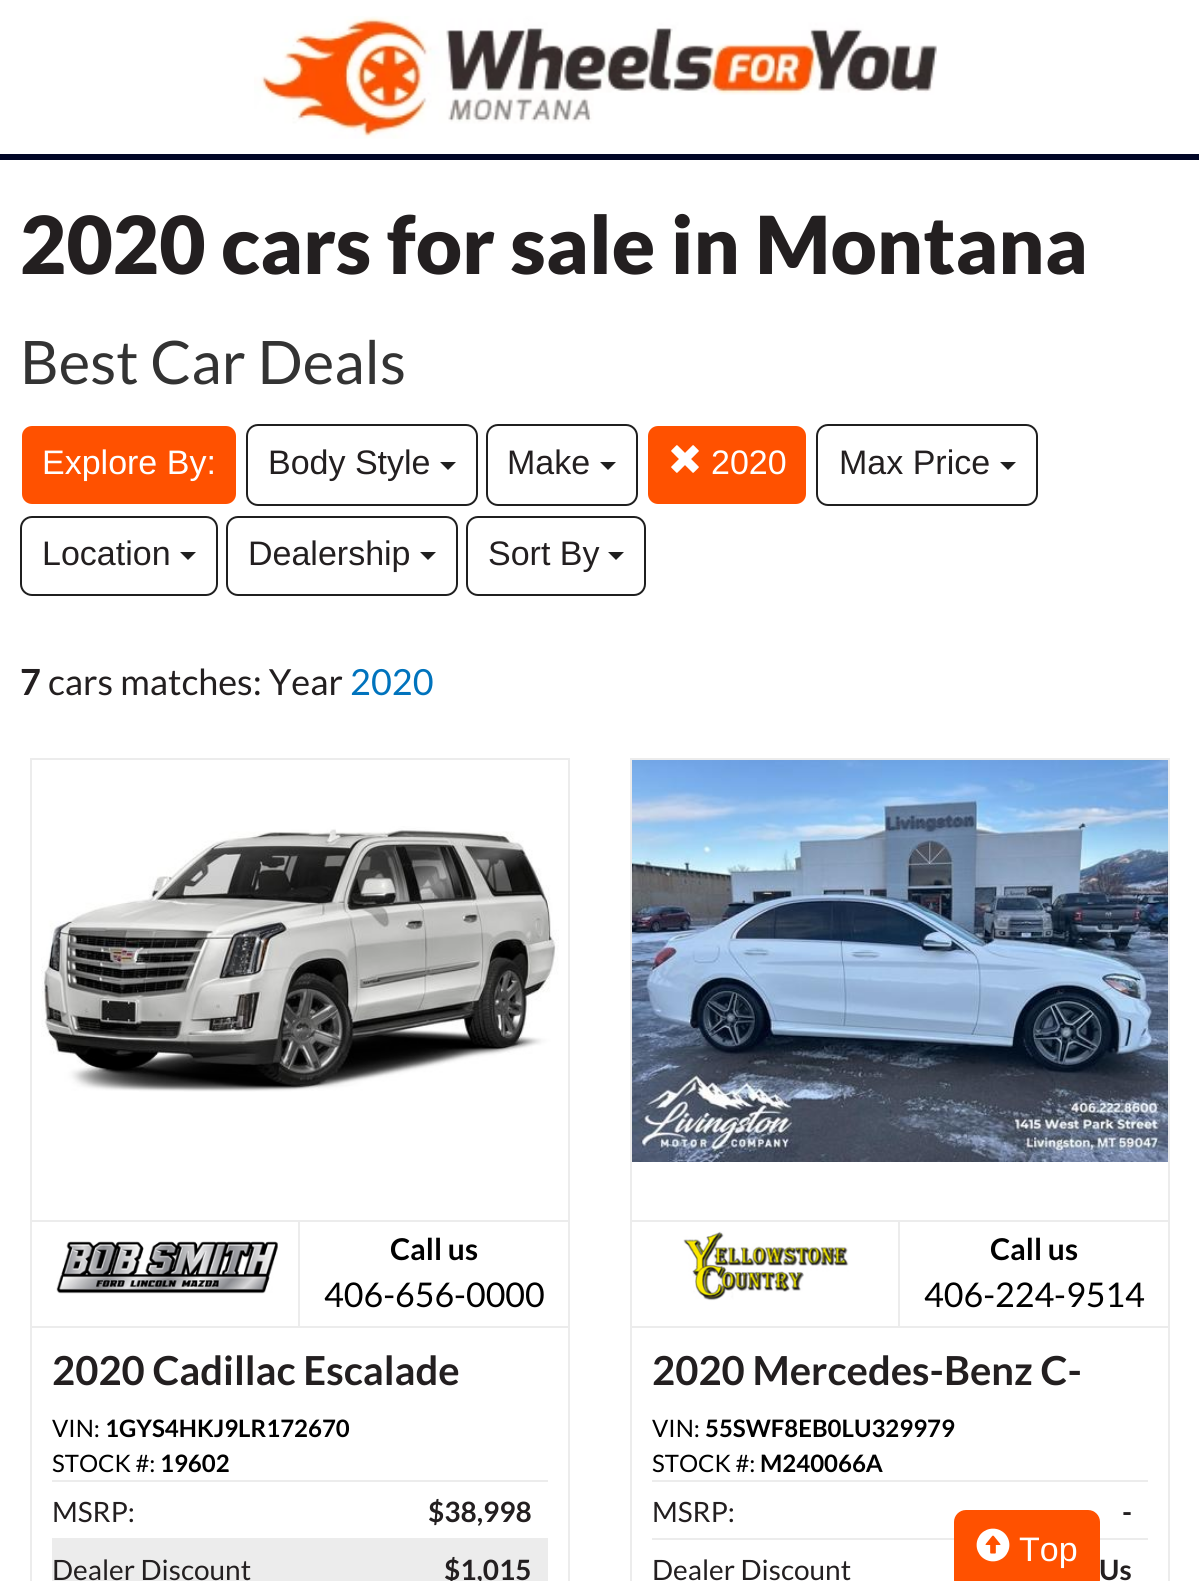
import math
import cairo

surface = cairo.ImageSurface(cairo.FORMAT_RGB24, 1199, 1581)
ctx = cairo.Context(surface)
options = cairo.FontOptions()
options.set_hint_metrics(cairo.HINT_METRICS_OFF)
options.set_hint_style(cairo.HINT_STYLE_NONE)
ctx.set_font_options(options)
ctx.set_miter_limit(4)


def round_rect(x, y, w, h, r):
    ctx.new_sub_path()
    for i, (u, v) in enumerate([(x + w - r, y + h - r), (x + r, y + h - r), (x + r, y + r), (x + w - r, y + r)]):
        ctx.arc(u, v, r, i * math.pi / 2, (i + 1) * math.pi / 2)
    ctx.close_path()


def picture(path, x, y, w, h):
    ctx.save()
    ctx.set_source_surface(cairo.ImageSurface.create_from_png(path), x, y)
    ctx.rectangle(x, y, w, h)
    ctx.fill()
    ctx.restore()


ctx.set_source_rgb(1, 1, 1)
ctx.paint()
ctx.set_source_rgb(0.004, 0.027, 0.153)
ctx.rectangle(0, 154, 1199, 6)
ctx.fill()
picture("img1.png", 254, 16, 683, 123)
ctx.select_font_face("Lato Black")
ctx.set_font_size(80)
ctx.set_source_rgb(0.137, 0.122, 0.125)
ctx.move_to(20, 274)
ctx.show_text("2020 cars for sale in Montana")
ctx.select_font_face("Lato")
ctx.set_font_size(60)
ctx.set_source_rgb(0.2, 0.2, 0.2)
ctx.move_to(20, 384)
ctx.show_text("Best Car Deals")
ctx.set_source_rgb(1, 0.318, 0)
round_rect(21, 425, 216, 80, 11)
ctx.fill_preserve()
ctx.set_source_rgb(1, 1, 1)
ctx.stroke()
ctx.select_font_face("Liberation Sans")
ctx.set_font_size(34)
ctx.move_to(42, 474)
ctx.show_text("Explore By:")
round_rect(247, 425, 230, 80, 11)
ctx.set_source_rgb(0.122, 0.122, 0.122)
ctx.stroke()
ctx.set_source_rgb(0.137, 0.122, 0.125)
ctx.move_to(268, 474)
ctx.show_text("Body Style")
ctx.set_source_rgb(0.122, 0.122, 0.122)
ctx.new_path()
ctx.move_to(440, 462)
ctx.line_to(456, 462)
ctx.line_to(448, 470)
ctx.close_path()
ctx.fill()
round_rect(487, 425, 150, 80, 11)
ctx.stroke()
ctx.set_source_rgb(0.137, 0.122, 0.125)
ctx.move_to(507, 474)
ctx.show_text("Make")
ctx.set_source_rgb(0.122, 0.122, 0.122)
ctx.new_path()
ctx.move_to(600, 462)
ctx.line_to(616, 462)
ctx.line_to(608, 470)
ctx.close_path()
ctx.fill()
ctx.set_source_rgb(1, 0.318, 0)
round_rect(647, 425, 160, 80, 11)
ctx.fill_preserve()
ctx.set_source_rgb(1, 1, 1)
ctx.stroke()
picture("img2.png", 671, 445, 28, 28)
ctx.move_to(711, 474)
ctx.show_text("2020")
round_rect(817, 425, 220, 80, 11)
ctx.set_source_rgb(0.122, 0.122, 0.122)
ctx.stroke()
ctx.set_source_rgb(0.137, 0.122, 0.125)
ctx.move_to(839, 474)
ctx.show_text("Max Price")
ctx.set_source_rgb(0.122, 0.122, 0.122)
ctx.new_path()
ctx.move_to(1000, 462)
ctx.line_to(1016, 462)
ctx.line_to(1008, 470)
ctx.close_path()
ctx.fill()
round_rect(21, 517, 196, 78, 11)
ctx.stroke()
ctx.set_source_rgb(0.137, 0.122, 0.125)
ctx.move_to(42, 565)
ctx.show_text("Location")
ctx.set_source_rgb(0.122, 0.122, 0.122)
ctx.new_path()
ctx.move_to(180, 552)
ctx.line_to(196, 552)
ctx.line_to(188, 560)
ctx.close_path()
ctx.fill()
round_rect(227, 517, 230, 78, 11)
ctx.stroke()
ctx.set_source_rgb(0.137, 0.122, 0.125)
ctx.move_to(248, 565)
ctx.show_text("Dealership")
ctx.set_source_rgb(0.122, 0.122, 0.122)
ctx.new_path()
ctx.move_to(420, 552)
ctx.line_to(436, 552)
ctx.line_to(428, 560)
ctx.close_path()
ctx.fill()
round_rect(467, 517, 178, 78, 11)
ctx.stroke()
ctx.set_source_rgb(0.137, 0.122, 0.125)
ctx.move_to(488, 565)
ctx.show_text("Sort By")
ctx.set_source_rgb(0.122, 0.122, 0.122)
ctx.new_path()
ctx.move_to(608, 552)
ctx.line_to(624, 552)
ctx.line_to(616, 560)
ctx.close_path()
ctx.fill()
ctx.select_font_face("Lato", cairo.FONT_SLANT_NORMAL, cairo.FONT_WEIGHT_BOLD)
ctx.set_font_size(36)
ctx.set_source_rgb(0.137, 0.122, 0.125)
ctx.move_to(20, 695)
ctx.show_text("7")
ctx.select_font_face("Lato")
ctx.move_to(48, 695)
ctx.show_text("cars matches: Year")
ctx.set_source_rgb(0, 0.451, 0.741)
ctx.move_to(350, 695)
ctx.show_text("2020")
ctx.rectangle(31, 759, 538, 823)
ctx.set_source_rgb(0.922, 0.922, 0.922)
ctx.stroke()
picture("img3.png", 41, 826, 518, 266)
ctx.rectangle(32, 1220, 536, 2)
ctx.fill()
ctx.rectangle(298, 1220, 2, 108)
ctx.fill()
ctx.rectangle(32, 1326, 536, 2)
ctx.fill()
picture("img4.png", 56, 1241, 222, 53)
ctx.select_font_face("Lato", cairo.FONT_SLANT_NORMAL, cairo.FONT_WEIGHT_BOLD)
ctx.set_font_size(30)
ctx.set_source_rgb(0, 0, 0)
ctx.move_to(390, 1260)
ctx.show_text("Call us")
ctx.select_font_face("Lato")
ctx.set_font_size(34)
ctx.move_to(324, 1307)
ctx.show_text("406-656-0000")
ctx.select_font_face("Lato", cairo.FONT_SLANT_NORMAL, cairo.FONT_WEIGHT_BOLD)
ctx.set_font_size(40)
ctx.set_source_rgb(0.137, 0.122, 0.125)
ctx.move_to(52, 1385)
ctx.show_text("2020 Cadillac Escalade")
ctx.select_font_face("Lato")
ctx.set_font_size(24)
ctx.set_source_rgb(0, 0, 0)
ctx.move_to(52, 1437)
ctx.show_text("VIN:")
ctx.select_font_face("Lato", cairo.FONT_SLANT_NORMAL, cairo.FONT_WEIGHT_BOLD)
ctx.move_to(105, 1437)
ctx.show_text("1GYS4HKJ9LR172670")
ctx.select_font_face("Lato")
ctx.move_to(52, 1472)
ctx.show_text("STOCK #:")
ctx.select_font_face("Lato", cairo.FONT_SLANT_NORMAL, cairo.FONT_WEIGHT_BOLD)
ctx.move_to(160, 1472)
ctx.show_text("19602")
ctx.set_source_rgb(0.922, 0.922, 0.922)
ctx.rectangle(52, 1480, 496, 2)
ctx.fill()
ctx.rectangle(52, 1538, 496, 43)
ctx.fill()
ctx.select_font_face("Lato")
ctx.set_font_size(28)
ctx.set_source_rgb(0.137, 0.122, 0.125)
ctx.move_to(52, 1522)
ctx.show_text("MSRP:")
ctx.select_font_face("Lato", cairo.FONT_SLANT_NORMAL, cairo.FONT_WEIGHT_BOLD)
ctx.move_to(428, 1522)
ctx.show_text("$38,998")
ctx.select_font_face("Lato")
ctx.move_to(52, 1580)
ctx.show_text("Dealer Discount")
ctx.select_font_face("Lato", cairo.FONT_SLANT_NORMAL, cairo.FONT_WEIGHT_BOLD)
ctx.move_to(444, 1580)
ctx.show_text("$1,015")
ctx.rectangle(631, 759, 538, 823)
ctx.set_source_rgb(0.922, 0.922, 0.922)
ctx.stroke()
picture("img5.png", 632, 760, 536, 402)
ctx.rectangle(632, 1220, 536, 2)
ctx.fill()
ctx.rectangle(898, 1220, 2, 108)
ctx.fill()
ctx.rectangle(632, 1326, 536, 2)
ctx.fill()
picture("img6.png", 683, 1231, 166, 70)
ctx.set_font_size(30)
ctx.set_source_rgb(0, 0, 0)
ctx.move_to(990, 1260)
ctx.show_text("Call us")
ctx.select_font_face("Lato")
ctx.set_font_size(34)
ctx.move_to(924, 1307)
ctx.show_text("406-224-9514")
ctx.select_font_face("Lato", cairo.FONT_SLANT_NORMAL, cairo.FONT_WEIGHT_BOLD)
ctx.set_font_size(40)
ctx.set_source_rgb(0.137, 0.122, 0.125)
ctx.move_to(652, 1385)
ctx.show_text("2020 Mercedes-Benz C-")
ctx.select_font_face("Lato")
ctx.set_font_size(24)
ctx.set_source_rgb(0, 0, 0)
ctx.move_to(652, 1437)
ctx.show_text("VIN:")
ctx.select_font_face("Lato", cairo.FONT_SLANT_NORMAL, cairo.FONT_WEIGHT_BOLD)
ctx.move_to(705, 1437)
ctx.show_text("55SWF8EB0LU329979")
ctx.select_font_face("Lato")
ctx.move_to(652, 1472)
ctx.show_text("STOCK #:")
ctx.select_font_face("Lato", cairo.FONT_SLANT_NORMAL, cairo.FONT_WEIGHT_BOLD)
ctx.move_to(760, 1472)
ctx.show_text("M240066A")
ctx.set_source_rgb(0.922, 0.922, 0.922)
ctx.rectangle(652, 1480, 496, 2)
ctx.fill()
ctx.rectangle(652, 1538, 496, 2)
ctx.fill()
ctx.select_font_face("Lato")
ctx.set_font_size(28)
ctx.set_source_rgb(0.137, 0.122, 0.125)
ctx.move_to(652, 1522)
ctx.show_text("MSRP:")
ctx.select_font_face("Lato", cairo.FONT_SLANT_NORMAL, cairo.FONT_WEIGHT_BOLD)
ctx.move_to(1122, 1522)
ctx.show_text("-")
ctx.select_font_face("Lato")
ctx.move_to(652, 1580)
ctx.show_text("Dealer Discount")
ctx.select_font_face("Lato", cairo.FONT_SLANT_NORMAL, cairo.FONT_WEIGHT_BOLD)
ctx.move_to(1099, 1580)
ctx.show_text("Us")
ctx.set_source_rgb(1, 0.318, 0)
round_rect(955, 1511, 144, 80, 11)
ctx.fill_preserve()
ctx.stroke()
picture("img7.png", 976, 1528, 34, 34)
ctx.select_font_face("Liberation Sans")
ctx.set_font_size(34)
ctx.set_source_rgb(1, 1, 1)
ctx.move_to(1019, 1561)
ctx.show_text("Top")
surface.write_to_png("page.png")
